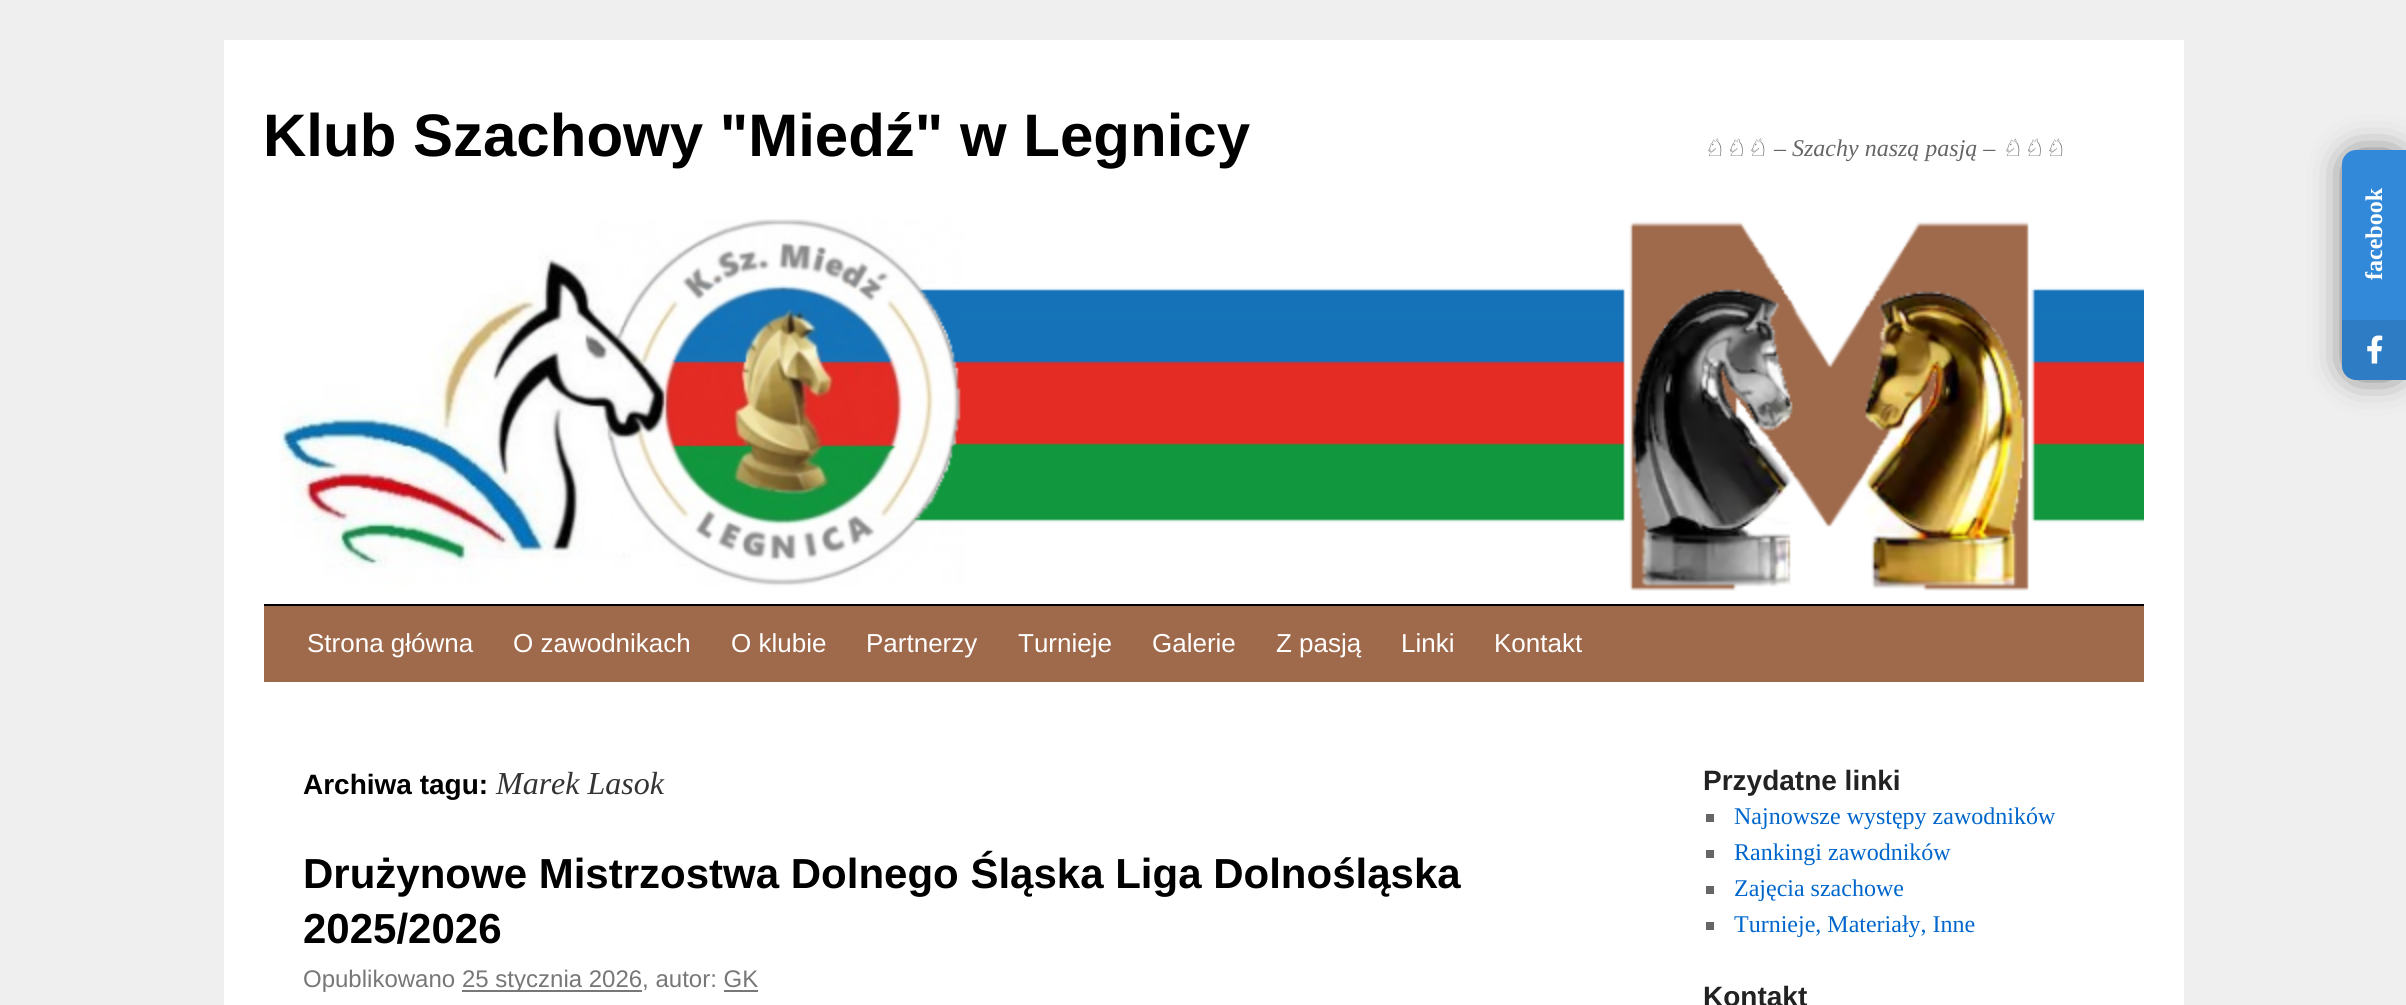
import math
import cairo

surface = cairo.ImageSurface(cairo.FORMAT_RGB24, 2406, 1005)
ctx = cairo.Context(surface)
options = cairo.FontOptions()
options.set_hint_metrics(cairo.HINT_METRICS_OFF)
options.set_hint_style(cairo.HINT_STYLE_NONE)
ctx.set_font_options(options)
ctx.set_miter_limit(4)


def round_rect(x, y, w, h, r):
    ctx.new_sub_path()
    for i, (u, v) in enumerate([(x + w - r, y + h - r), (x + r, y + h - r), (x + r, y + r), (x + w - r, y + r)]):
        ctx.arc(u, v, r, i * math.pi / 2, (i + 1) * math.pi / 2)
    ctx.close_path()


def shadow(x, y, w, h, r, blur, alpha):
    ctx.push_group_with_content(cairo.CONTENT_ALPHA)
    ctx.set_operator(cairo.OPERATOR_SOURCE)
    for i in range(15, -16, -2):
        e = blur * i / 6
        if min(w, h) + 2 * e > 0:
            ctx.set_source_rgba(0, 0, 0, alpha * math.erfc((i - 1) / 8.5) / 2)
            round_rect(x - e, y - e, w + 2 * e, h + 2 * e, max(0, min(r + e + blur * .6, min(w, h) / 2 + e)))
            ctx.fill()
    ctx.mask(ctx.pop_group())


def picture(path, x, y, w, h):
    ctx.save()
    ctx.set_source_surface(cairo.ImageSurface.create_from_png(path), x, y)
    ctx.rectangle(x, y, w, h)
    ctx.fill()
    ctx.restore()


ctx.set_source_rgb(0.937, 0.937, 0.937)
ctx.paint()
ctx.set_source_rgb(1, 1, 1)
ctx.rectangle(224, 40, 1960, 965)
ctx.fill()
ctx.select_font_face("Liberation Sans", cairo.FONT_SLANT_NORMAL, cairo.FONT_WEIGHT_BOLD)
ctx.set_font_size(60)
ctx.set_source_rgb(0, 0, 0)
ctx.move_to(263, 156)
ctx.show_text("Klub Szachowy \"Miedź\" w Legnicy")
ctx.select_font_face("DejaVu Sans", cairo.FONT_SLANT_ITALIC)
ctx.set_font_size(24)
ctx.set_source_rgb(0.4, 0.4, 0.4)
ctx.move_to(1703, 156)
ctx.show_text("♘♘♘")
ctx.select_font_face("Liberation Serif", cairo.FONT_SLANT_ITALIC)
ctx.move_to(1774, 156)
ctx.show_text("– Szachy naszą pasją –")
ctx.select_font_face("DejaVu Sans", cairo.FONT_SLANT_ITALIC)
ctx.move_to(2001, 156)
ctx.show_text("♘♘♘")
ctx.set_source_rgb(0, 0, 0)
ctx.rectangle(264, 604, 1880, 2)
ctx.fill()
picture("img1.png", 279, 219, 1865, 372)
ctx.set_source_rgb(0.624, 0.416, 0.294)
ctx.rectangle(264, 606, 1880, 76)
ctx.fill()
ctx.select_font_face("Liberation Sans")
ctx.set_font_size(26)
ctx.set_source_rgb(1, 1, 1)
ctx.move_to(307, 652)
ctx.show_text("Strona główna")
ctx.move_to(513, 652)
ctx.show_text("O zawodnikach")
ctx.move_to(731, 652)
ctx.show_text("O klubie")
ctx.move_to(866, 652)
ctx.show_text("Partnerzy")
ctx.move_to(1018, 652)
ctx.show_text("Turnieje")
ctx.move_to(1152, 652)
ctx.show_text("Galerie")
ctx.move_to(1276, 652)
ctx.show_text("Z pasją")
ctx.move_to(1401, 652)
ctx.show_text("Linki")
ctx.move_to(1494, 652)
ctx.show_text("Kontakt")
ctx.select_font_face("Liberation Sans", cairo.FONT_SLANT_NORMAL, cairo.FONT_WEIGHT_BOLD)
ctx.set_font_size(28)
ctx.set_source_rgb(0, 0, 0)
ctx.move_to(303, 794)
ctx.show_text("Archiwa tagu:")
ctx.select_font_face("Liberation Serif", cairo.FONT_SLANT_ITALIC)
ctx.set_font_size(32)
ctx.set_source_rgb(0.2, 0.2, 0.2)
ctx.move_to(496, 794)
ctx.show_text("Marek Lasok")
ctx.select_font_face("Liberation Sans", cairo.FONT_SLANT_NORMAL, cairo.FONT_WEIGHT_BOLD)
ctx.set_font_size(42)
ctx.set_source_rgb(0, 0, 0)
ctx.move_to(303, 888)
ctx.show_text("Drużynowe Mistrzostwa Dolnego Śląska Liga Dolnośląska")
ctx.move_to(303, 943)
ctx.show_text("2025/2026")
ctx.select_font_face("Liberation Sans")
ctx.set_font_size(24)
ctx.set_source_rgb(0.467, 0.467, 0.467)
ctx.move_to(303, 987)
ctx.show_text("Opublikowano")
ctx.rectangle(462, 990, 180, 2)
ctx.fill()
ctx.move_to(462, 987)
ctx.show_text("25 stycznia 2026, autor: GK")
ctx.rectangle(724, 990, 34, 2)
ctx.fill()
ctx.select_font_face("Liberation Sans", cairo.FONT_SLANT_NORMAL, cairo.FONT_WEIGHT_BOLD)
ctx.set_font_size(28)
ctx.set_source_rgb(0.133, 0.133, 0.133)
ctx.move_to(1703, 790)
ctx.show_text("Przydatne linki")
ctx.set_source_rgb(0.4, 0.4, 0.4)
ctx.rectangle(1706, 814, 8, 8)
ctx.fill()
ctx.select_font_face("Liberation Serif")
ctx.set_font_size(24)
ctx.set_source_rgb(0, 0.4, 0.8)
ctx.move_to(1734, 824)
ctx.show_text("Najnowsze występy zawodników")
ctx.set_source_rgb(0.4, 0.4, 0.4)
ctx.rectangle(1706, 850, 8, 8)
ctx.fill()
ctx.set_source_rgb(0, 0.4, 0.8)
ctx.move_to(1734, 860)
ctx.show_text("Rankingi zawodników")
ctx.set_source_rgb(0.4, 0.4, 0.4)
ctx.rectangle(1706, 886, 8, 8)
ctx.fill()
ctx.set_source_rgb(0, 0.4, 0.8)
ctx.move_to(1734, 896)
ctx.show_text("Zajęcia szachowe")
ctx.set_source_rgb(0.4, 0.4, 0.4)
ctx.rectangle(1706, 922, 8, 8)
ctx.fill()
ctx.set_source_rgb(0, 0.4, 0.8)
ctx.move_to(1734, 932)
ctx.show_text("Turnieje, Materiały, Inne")
ctx.select_font_face("Liberation Sans", cairo.FONT_SLANT_NORMAL, cairo.FONT_WEIGHT_BOLD)
ctx.set_font_size(28)
ctx.set_source_rgb(0.133, 0.133, 0.133)
ctx.move_to(1703, 1006)
ctx.show_text("Kontakt")
ctx.set_source_rgb(0, 0, 0)
shadow(2356, 164, 36, 202, 0, 20, 1)
ctx.set_source_rgb(0.196, 0.537, 0.851)
ctx.new_path()
ctx.move_to(2356, 150)
ctx.line_to(2406, 150)
ctx.line_to(2406, 380)
ctx.line_to(2356, 380)
ctx.curve_to(2348.5, 380, 2342, 373.5, 2342, 366)
ctx.line_to(2342, 164)
ctx.curve_to(2342, 156.5, 2348.5, 150, 2356, 150)
ctx.close_path()
ctx.fill()
ctx.select_font_face("Liberation Serif", cairo.FONT_SLANT_NORMAL, cairo.FONT_WEIGHT_BOLD)
ctx.set_font_size(24)
ctx.set_source_rgb(1, 1, 1)
ctx.save()
ctx.translate(2382, 280)
ctx.rotate(-90 * math.pi / 180)
ctx.move_to(0, 0)
ctx.show_text("facebook")
ctx.restore()
ctx.set_source_rgba(0, 0, 0, 0.1)
ctx.new_path()
ctx.move_to(2342, 320)
ctx.line_to(2406, 320)
ctx.line_to(2406, 380)
ctx.line_to(2356, 380)
ctx.curve_to(2348.5, 380, 2342, 373.5, 2342, 366)
ctx.close_path()
ctx.fill()
picture("img2.png", 2367, 335, 16, 29)
surface.write_to_png("page.png")
